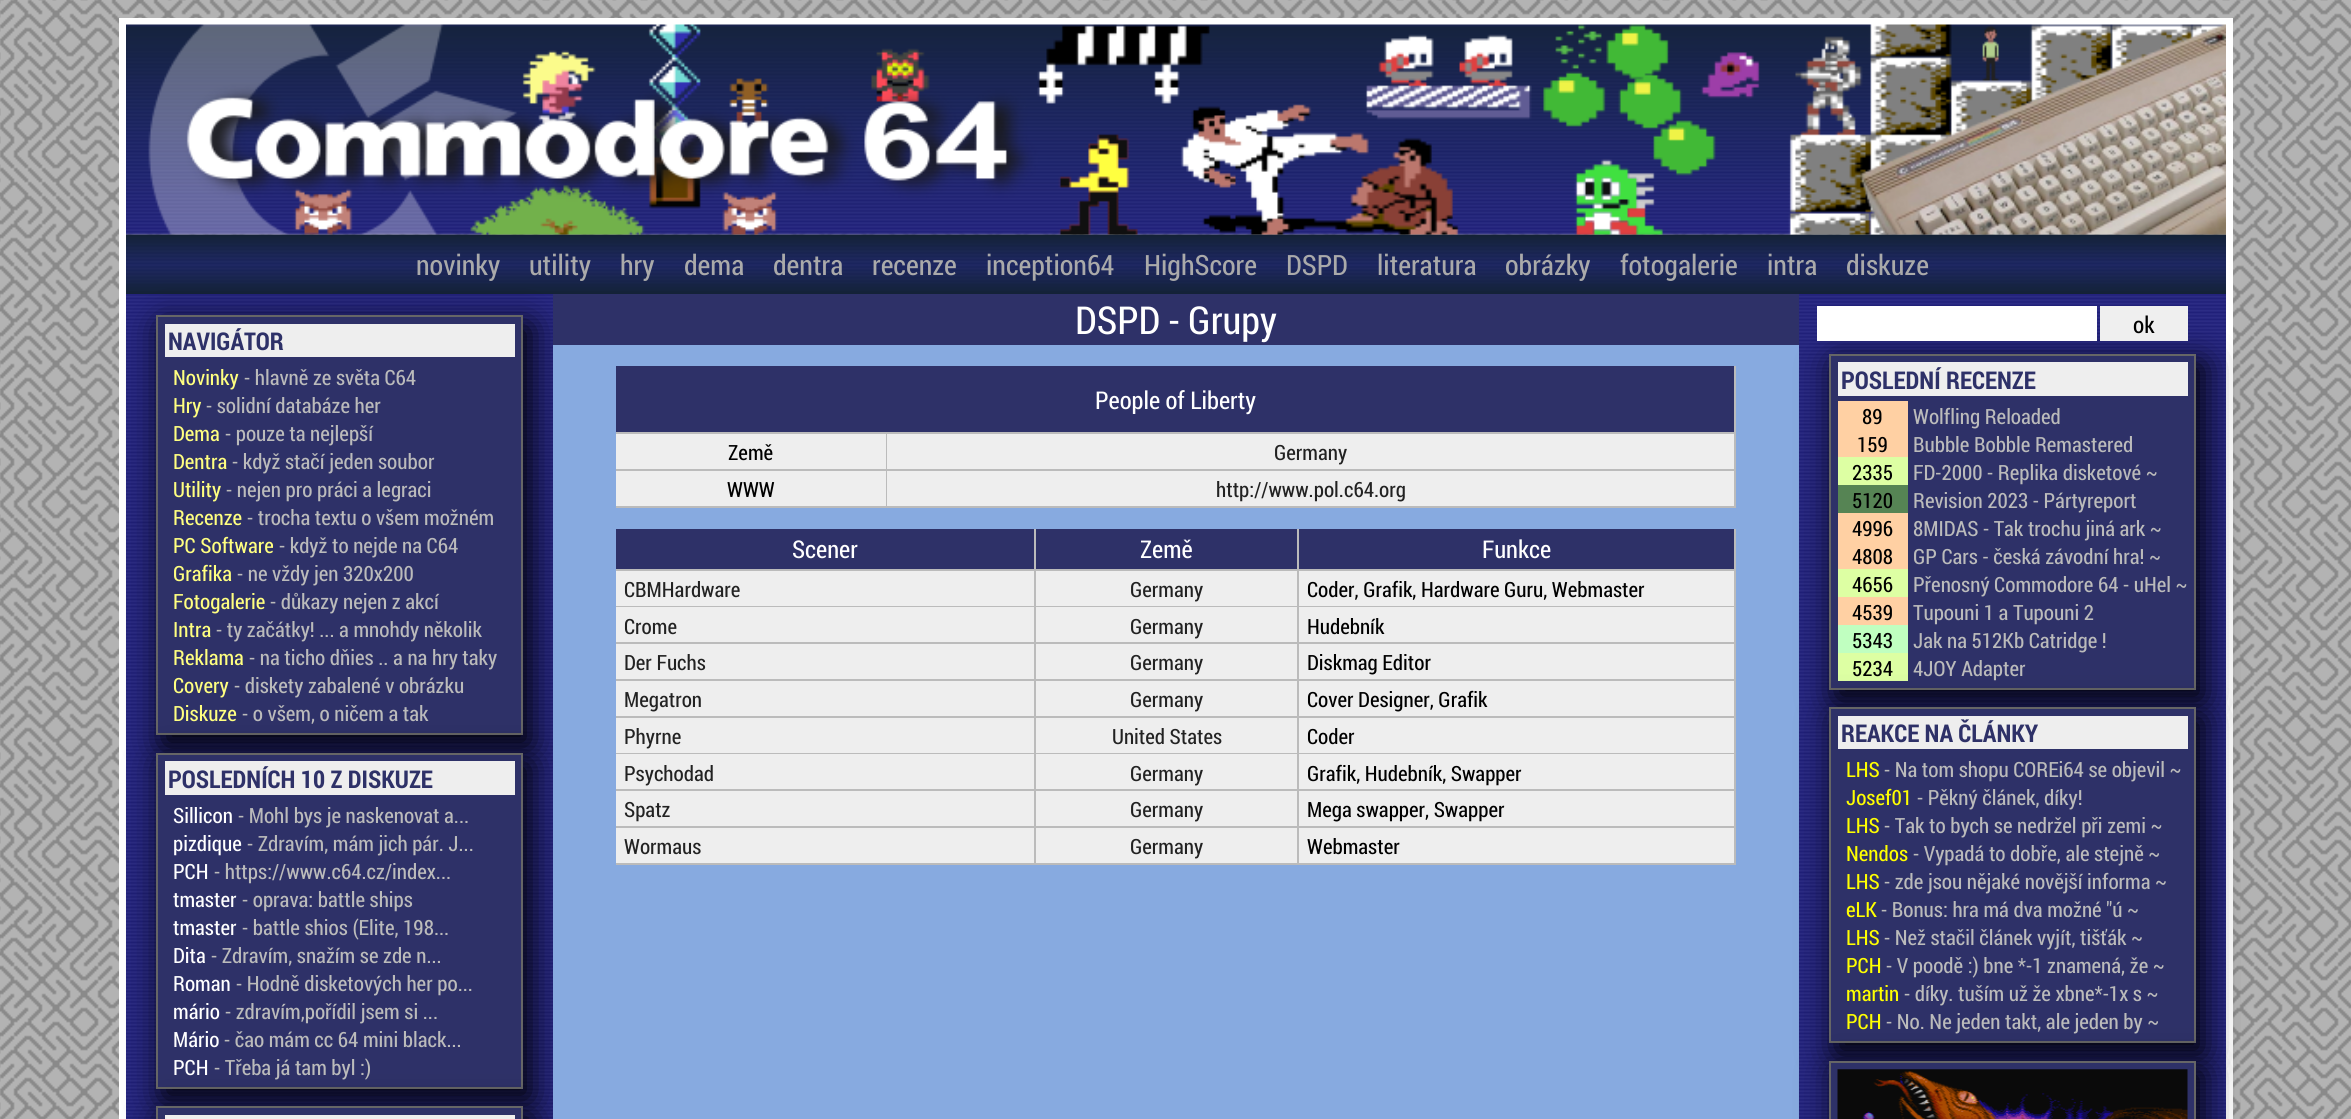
import math
import cairo

surface = cairo.ImageSurface(cairo.FORMAT_RGB24, 2351, 1119)
ctx = cairo.Context(surface)
options = cairo.FontOptions()
options.set_hint_metrics(cairo.HINT_METRICS_OFF)
options.set_hint_style(cairo.HINT_STYLE_NONE)
ctx.set_font_options(options)
ctx.set_miter_limit(4)


def round_rect(x, y, w, h, r):
    ctx.new_sub_path()
    for i, (u, v) in enumerate([(x + w - r, y + h - r), (x + r, y + h - r), (x + r, y + r), (x + w - r, y + r)]):
        ctx.arc(u, v, r, i * math.pi / 2, (i + 1) * math.pi / 2)
    ctx.close_path()


def shadow(x, y, w, h, r, blur, alpha):
    ctx.push_group_with_content(cairo.CONTENT_ALPHA)
    ctx.set_operator(cairo.OPERATOR_SOURCE)
    for i in range(15, -16, -2):
        e = blur * i / 6
        if min(w, h) + 2 * e > 0:
            ctx.set_source_rgba(0, 0, 0, alpha * math.erfc((i - 1) / 8.5) / 2)
            round_rect(x - e, y - e, w + 2 * e, h + 2 * e, max(0, min(r + e + blur * .6, min(w, h) / 2 + e)))
            ctx.fill()
    ctx.mask(ctx.pop_group())


def picture(path, x, y, w, h):
    ctx.save()
    ctx.set_source_surface(cairo.ImageSurface.create_from_png(path), x, y)
    ctx.rectangle(x, y, w, h)
    ctx.fill()
    ctx.restore()


ctx.set_source_rgb(1, 1, 1)
ctx.paint()
picture("img1.png", 0, 0, 2351, 1119)
ctx.rectangle(122.5, 21.5, 2107, 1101)
ctx.set_source_rgb(1, 1, 1)
ctx.set_line_width(7)
ctx.stroke()
picture("img3.png", 126, 234, 2100, 60)
picture("img2.png", 126, 24, 2100, 211)
picture("img4.png", 126, 294, 427, 825)
ctx.set_source_rgb(0, 0, 0)
shadow(163, 326, 367, 420, 0, 17.5, 1)
ctx.select_font_face("Roboto Condensed")
ctx.set_font_size(28)
ctx.set_source_rgb(0.667, 0.667, 0.667)
ctx.move_to(416, 275)
ctx.show_text("novinky")
ctx.move_to(529, 275)
ctx.show_text("utility")
ctx.move_to(620, 275)
ctx.show_text("hry")
ctx.move_to(684, 275)
ctx.show_text("dema")
ctx.move_to(773, 275)
ctx.show_text("dentra")
ctx.move_to(872, 275)
ctx.show_text("recenze")
ctx.move_to(986, 275)
ctx.show_text("inception64")
ctx.move_to(1144, 275)
ctx.show_text("HighScore")
ctx.move_to(1286, 275)
ctx.show_text("DSPD")
ctx.move_to(1377, 275)
ctx.show_text("literatura")
ctx.move_to(1505, 275)
ctx.show_text("obrázky")
ctx.move_to(1620, 275)
ctx.show_text("fotogalerie")
ctx.move_to(1767, 275)
ctx.show_text("intra")
ctx.move_to(1846, 275)
ctx.show_text("diskuze")
ctx.set_source_rgb(0.18, 0.192, 0.408)
ctx.rectangle(157, 316, 365, 418)
ctx.fill_preserve()
ctx.set_source_rgb(0.4, 0.4, 0.4)
ctx.set_line_width(2)
ctx.stroke()
ctx.set_source_rgb(0.933, 0.933, 0.933)
ctx.rectangle(165, 324, 350, 33)
ctx.fill()
ctx.select_font_face("Roboto Condensed", cairo.FONT_SLANT_NORMAL, cairo.FONT_WEIGHT_BOLD)
ctx.set_font_size(24.5)
ctx.set_source_rgb(0.18, 0.192, 0.408)
ctx.move_to(168, 350)
ctx.show_text("NAVIGÁTOR")
ctx.select_font_face("Roboto Condensed")
ctx.set_font_size(21)
ctx.set_source_rgb(1, 1, 0.502)
ctx.move_to(173, 385)
ctx.show_text("Novinky")
ctx.set_source_rgb(0.733, 0.733, 0.733)
ctx.move_to(244, 385)
ctx.show_text("- hlavně ze světa C64")
ctx.set_source_rgb(1, 1, 0.502)
ctx.move_to(173, 413)
ctx.show_text("Hry")
ctx.set_source_rgb(0.733, 0.733, 0.733)
ctx.move_to(206, 413)
ctx.show_text("- solidní databáze her")
ctx.set_source_rgb(1, 1, 0.502)
ctx.move_to(173, 441)
ctx.show_text("Dema")
ctx.set_source_rgb(0.733, 0.733, 0.733)
ctx.move_to(225, 441)
ctx.show_text("- pouze ta nejlepší")
ctx.set_source_rgb(1, 1, 0.502)
ctx.move_to(173, 469)
ctx.show_text("Dentra")
ctx.set_source_rgb(0.733, 0.733, 0.733)
ctx.move_to(232, 469)
ctx.show_text("- když stačí jeden soubor")
ctx.set_source_rgb(1, 1, 0.502)
ctx.move_to(173, 497)
ctx.show_text("Utility")
ctx.set_source_rgb(0.733, 0.733, 0.733)
ctx.move_to(226, 497)
ctx.show_text("- nejen pro práci a legraci")
ctx.set_source_rgb(1, 1, 0.502)
ctx.move_to(173, 525)
ctx.show_text("Recenze")
ctx.set_source_rgb(0.733, 0.733, 0.733)
ctx.move_to(247, 525)
ctx.show_text("- trocha textu o všem možném")
ctx.set_source_rgb(1, 1, 0.502)
ctx.move_to(173, 553)
ctx.show_text("PC Software")
ctx.set_source_rgb(0.733, 0.733, 0.733)
ctx.move_to(279, 553)
ctx.show_text("- když to nejde na C64")
ctx.set_source_rgb(1, 1, 0.502)
ctx.move_to(173, 581)
ctx.show_text("Grafika")
ctx.set_source_rgb(0.733, 0.733, 0.733)
ctx.move_to(237, 581)
ctx.show_text("- ne vždy jen 320x200")
ctx.set_source_rgb(1, 1, 0.502)
ctx.move_to(173, 609)
ctx.show_text("Fotogalerie")
ctx.set_source_rgb(0.733, 0.733, 0.733)
ctx.move_to(270, 609)
ctx.show_text("- důkazy nejen z akcí")
ctx.set_source_rgb(1, 1, 0.502)
ctx.move_to(173, 637)
ctx.show_text("Intra")
ctx.set_source_rgb(0.733, 0.733, 0.733)
ctx.move_to(216, 637)
ctx.show_text("- ty začátky! ... a mnohdy několik")
ctx.set_source_rgb(1, 1, 0.502)
ctx.move_to(173, 665)
ctx.show_text("Reklama")
ctx.set_source_rgb(0.733, 0.733, 0.733)
ctx.move_to(249, 665)
ctx.show_text("- na ticho dňies .. a na hry taky")
ctx.set_source_rgb(1, 1, 0.502)
ctx.move_to(173, 693)
ctx.show_text("Covery")
ctx.set_source_rgb(0.733, 0.733, 0.733)
ctx.move_to(234, 693)
ctx.show_text("- diskety zabalené v obrázku")
ctx.set_source_rgb(0, 0, 0)
shadow(163, 763, 367, 336, 0, 17.5, 1)
ctx.set_source_rgb(1, 1, 0.502)
ctx.move_to(173, 721)
ctx.show_text("Diskuze")
ctx.set_source_rgb(0.733, 0.733, 0.733)
ctx.move_to(242, 721)
ctx.show_text("- o všem, o ničem a tak")
ctx.set_source_rgb(0.18, 0.192, 0.408)
ctx.rectangle(157, 754, 365, 334)
ctx.fill_preserve()
ctx.set_source_rgb(0.4, 0.4, 0.4)
ctx.stroke()
ctx.set_source_rgb(0.933, 0.933, 0.933)
ctx.rectangle(165, 761, 350, 34)
ctx.fill()
ctx.select_font_face("Roboto Condensed", cairo.FONT_SLANT_NORMAL, cairo.FONT_WEIGHT_BOLD)
ctx.set_font_size(24.5)
ctx.set_source_rgb(0.18, 0.192, 0.408)
ctx.move_to(168, 788)
ctx.show_text("POSLEDNÍCH 10 Z DISKUZE")
ctx.select_font_face("Roboto Condensed")
ctx.set_font_size(21)
ctx.set_source_rgb(1, 1, 1)
ctx.move_to(173, 823)
ctx.show_text("Sillicon")
ctx.set_source_rgb(0.733, 0.733, 0.733)
ctx.move_to(238, 823)
ctx.show_text("- Mohl bys je naskenovat a...")
ctx.set_source_rgb(1, 1, 1)
ctx.move_to(173, 851)
ctx.show_text("pizdique")
ctx.set_source_rgb(0.733, 0.733, 0.733)
ctx.move_to(247, 851)
ctx.show_text("- Zdravím, mám jich pár. J...")
ctx.set_source_rgb(1, 1, 1)
ctx.move_to(173, 879)
ctx.show_text("PCH")
ctx.set_source_rgb(0.733, 0.733, 0.733)
ctx.move_to(214, 879)
ctx.show_text("- https://www.c64.cz/index...")
ctx.set_source_rgb(1, 1, 1)
ctx.move_to(173, 907)
ctx.show_text("tmaster")
ctx.set_source_rgb(0.733, 0.733, 0.733)
ctx.move_to(242, 907)
ctx.show_text("- oprava: battle ships")
ctx.set_source_rgb(1, 1, 1)
ctx.move_to(173, 935)
ctx.show_text("tmaster")
ctx.set_source_rgb(0.733, 0.733, 0.733)
ctx.move_to(242, 935)
ctx.show_text("- battle shios (Elite, 198...")
ctx.set_source_rgb(1, 1, 1)
ctx.move_to(173, 963)
ctx.show_text("Dita")
ctx.set_source_rgb(0.733, 0.733, 0.733)
ctx.move_to(211, 963)
ctx.show_text("- Zdravím, snažím se zde n...")
ctx.set_source_rgb(1, 1, 1)
ctx.move_to(173, 991)
ctx.show_text("Roman")
ctx.set_source_rgb(0.733, 0.733, 0.733)
ctx.move_to(236, 991)
ctx.show_text("- Hodně disketových her po...")
ctx.set_source_rgb(1, 1, 1)
ctx.move_to(173, 1019)
ctx.show_text("mário")
ctx.set_source_rgb(0.733, 0.733, 0.733)
ctx.move_to(225, 1019)
ctx.show_text("- zdravím,pořídil jsem si ...")
ctx.set_source_rgb(1, 1, 1)
ctx.move_to(173, 1047)
ctx.show_text("Mário")
ctx.set_source_rgb(0.733, 0.733, 0.733)
ctx.move_to(224, 1047)
ctx.show_text("- čao mám cc 64 mini black...")
ctx.set_source_rgb(0, 0, 0)
shadow(163, 1117, 367, 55, 0, 17.5, 1)
ctx.set_source_rgb(1, 1, 1)
ctx.move_to(173, 1075)
ctx.show_text("PCH")
ctx.set_source_rgb(0.733, 0.733, 0.733)
ctx.move_to(214, 1075)
ctx.show_text("- Třeba já tam byl :)")
ctx.set_source_rgb(0.18, 0.192, 0.408)
ctx.rectangle(157, 1107, 365, 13)
ctx.fill_preserve()
ctx.set_source_rgb(0.4, 0.4, 0.4)
ctx.stroke()
ctx.set_source_rgb(0.933, 0.933, 0.933)
ctx.rectangle(165, 1115, 350, 4)
ctx.fill()
ctx.set_source_rgb(0.529, 0.667, 0.878)
ctx.rectangle(553, 345, 1246, 774)
ctx.fill()
ctx.set_source_rgb(0.18, 0.192, 0.408)
ctx.rectangle(553, 294, 1246, 51)
ctx.fill()
ctx.set_font_size(38.5)
ctx.set_source_rgb(1, 1, 1)
ctx.move_to(1075, 334)
ctx.show_text("DSPD - Grupy")
ctx.set_source_rgb(0.18, 0.192, 0.408)
ctx.rectangle(616, 366, 1118, 66)
ctx.fill()
ctx.set_source_rgb(0.733, 0.733, 0.733)
ctx.rectangle(1734, 366, 2, 142)
ctx.fill()
ctx.rectangle(616, 432, 1120, 2)
ctx.fill()
ctx.set_font_size(24.5)
ctx.set_source_rgb(1, 1, 1)
ctx.move_to(1095, 409)
ctx.show_text("People of Liberty")
ctx.set_source_rgb(0.933, 0.933, 0.933)
ctx.rectangle(616, 434, 270, 35)
ctx.fill()
ctx.set_source_rgb(0.733, 0.733, 0.733)
ctx.rectangle(886, 434, 1, 74)
ctx.fill()
ctx.rectangle(616, 469, 1120, 2)
ctx.fill()
ctx.set_font_size(21)
ctx.set_source_rgb(0, 0, 0)
ctx.move_to(728, 460)
ctx.show_text("Země")
ctx.set_source_rgb(0.933, 0.933, 0.933)
ctx.rectangle(887, 434, 847, 35)
ctx.fill()
ctx.set_source_rgb(0.133, 0.133, 0.133)
ctx.move_to(1274, 460)
ctx.show_text("Germany")
ctx.set_source_rgb(0.933, 0.933, 0.933)
ctx.rectangle(616, 471, 270, 35)
ctx.fill()
ctx.set_source_rgb(0.733, 0.733, 0.733)
ctx.rectangle(616, 506, 1120, 2)
ctx.fill()
ctx.set_source_rgb(0, 0, 0)
ctx.move_to(727, 497)
ctx.show_text("WWW")
ctx.set_source_rgb(0.933, 0.933, 0.933)
ctx.rectangle(887, 471, 847, 35)
ctx.fill()
ctx.set_source_rgb(0.133, 0.133, 0.133)
ctx.move_to(1216, 497)
ctx.show_text("http://www.pol.c64.org")
ctx.set_source_rgb(0.18, 0.192, 0.408)
ctx.rectangle(616, 529, 418, 40)
ctx.fill()
ctx.set_source_rgb(0.733, 0.733, 0.733)
ctx.rectangle(1034, 529, 2, 336)
ctx.fill()
ctx.rectangle(616, 569, 420, 2)
ctx.fill()
ctx.set_font_size(24.5)
ctx.set_source_rgb(1, 1, 1)
ctx.move_to(792, 558)
ctx.show_text("Scener")
ctx.set_source_rgb(0.18, 0.192, 0.408)
ctx.rectangle(1036, 529, 261, 40)
ctx.fill()
ctx.set_source_rgb(0.733, 0.733, 0.733)
ctx.rectangle(1297, 529, 2, 336)
ctx.fill()
ctx.rectangle(1036, 569, 263, 2)
ctx.fill()
ctx.set_source_rgb(1, 1, 1)
ctx.move_to(1140, 558)
ctx.show_text("Země")
ctx.set_source_rgb(0.18, 0.192, 0.408)
ctx.rectangle(1299, 529, 435, 40)
ctx.fill()
ctx.set_source_rgb(0.733, 0.733, 0.733)
ctx.rectangle(1734, 529, 2, 336)
ctx.fill()
ctx.rectangle(1299, 569, 437, 2)
ctx.fill()
ctx.set_source_rgb(1, 1, 1)
ctx.move_to(1482, 558)
ctx.show_text("Funkce")
ctx.set_source_rgb(0.933, 0.933, 0.933)
ctx.rectangle(616, 571, 418, 35)
ctx.fill()
ctx.set_source_rgb(0.733, 0.733, 0.733)
ctx.rectangle(616, 606, 1120, 1)
ctx.fill()
ctx.set_font_size(21)
ctx.set_source_rgb(0.133, 0.133, 0.133)
ctx.move_to(624, 597)
ctx.show_text("CBMHardware")
ctx.set_source_rgb(0.933, 0.933, 0.933)
ctx.rectangle(1036, 571, 261, 35)
ctx.fill()
ctx.set_source_rgb(0.133, 0.133, 0.133)
ctx.move_to(1130, 597)
ctx.show_text("Germany")
ctx.set_source_rgb(0.933, 0.933, 0.933)
ctx.rectangle(1299, 571, 435, 35)
ctx.fill()
ctx.set_source_rgb(0, 0, 0)
ctx.move_to(1307, 597)
ctx.show_text("Coder, Grafik, Hardware Guru, Webmaster")
ctx.set_source_rgb(0.933, 0.933, 0.933)
ctx.rectangle(616, 607, 418, 35)
ctx.fill()
ctx.set_source_rgb(0.733, 0.733, 0.733)
ctx.rectangle(616, 642, 1120, 2)
ctx.fill()
ctx.set_source_rgb(0.133, 0.133, 0.133)
ctx.move_to(624, 634)
ctx.show_text("Crome")
ctx.set_source_rgb(0.933, 0.933, 0.933)
ctx.rectangle(1036, 607, 261, 35)
ctx.fill()
ctx.set_source_rgb(0.133, 0.133, 0.133)
ctx.move_to(1130, 634)
ctx.show_text("Germany")
ctx.set_source_rgb(0.933, 0.933, 0.933)
ctx.rectangle(1299, 607, 435, 35)
ctx.fill()
ctx.set_source_rgb(0, 0, 0)
ctx.move_to(1307, 634)
ctx.show_text("Hudebník")
ctx.set_source_rgb(0.933, 0.933, 0.933)
ctx.rectangle(616, 644, 418, 35)
ctx.fill()
ctx.set_source_rgb(0.733, 0.733, 0.733)
ctx.rectangle(616, 679, 1120, 2)
ctx.fill()
ctx.set_source_rgb(0.133, 0.133, 0.133)
ctx.move_to(624, 670)
ctx.show_text("Der Fuchs")
ctx.set_source_rgb(0.933, 0.933, 0.933)
ctx.rectangle(1036, 644, 261, 35)
ctx.fill()
ctx.set_source_rgb(0.133, 0.133, 0.133)
ctx.move_to(1130, 670)
ctx.show_text("Germany")
ctx.set_source_rgb(0.933, 0.933, 0.933)
ctx.rectangle(1299, 644, 435, 35)
ctx.fill()
ctx.set_source_rgb(0, 0, 0)
ctx.move_to(1307, 670)
ctx.show_text("Diskmag Editor")
ctx.set_source_rgb(0.933, 0.933, 0.933)
ctx.rectangle(616, 681, 418, 35)
ctx.fill()
ctx.set_source_rgb(0.733, 0.733, 0.733)
ctx.rectangle(616, 716, 1120, 2)
ctx.fill()
ctx.set_source_rgb(0.133, 0.133, 0.133)
ctx.move_to(624, 707)
ctx.show_text("Megatron")
ctx.set_source_rgb(0.933, 0.933, 0.933)
ctx.rectangle(1036, 681, 261, 35)
ctx.fill()
ctx.set_source_rgb(0.133, 0.133, 0.133)
ctx.move_to(1130, 707)
ctx.show_text("Germany")
ctx.set_source_rgb(0.933, 0.933, 0.933)
ctx.rectangle(1299, 681, 435, 35)
ctx.fill()
ctx.set_source_rgb(0, 0, 0)
ctx.move_to(1307, 707)
ctx.show_text("Cover Designer, Grafik")
ctx.set_source_rgb(0.933, 0.933, 0.933)
ctx.rectangle(616, 718, 418, 35)
ctx.fill()
ctx.set_source_rgb(0.733, 0.733, 0.733)
ctx.rectangle(616, 753, 1120, 1)
ctx.fill()
ctx.set_source_rgb(0.133, 0.133, 0.133)
ctx.move_to(624, 744)
ctx.show_text("Phyrne")
ctx.set_source_rgb(0.933, 0.933, 0.933)
ctx.rectangle(1036, 718, 261, 35)
ctx.fill()
ctx.set_source_rgb(0.133, 0.133, 0.133)
ctx.move_to(1112, 744)
ctx.show_text("United States")
ctx.set_source_rgb(0.933, 0.933, 0.933)
ctx.rectangle(1299, 718, 435, 35)
ctx.fill()
ctx.set_source_rgb(0, 0, 0)
ctx.move_to(1307, 744)
ctx.show_text("Coder")
ctx.set_source_rgb(0.933, 0.933, 0.933)
ctx.rectangle(616, 754, 418, 35)
ctx.fill()
ctx.set_source_rgb(0.733, 0.733, 0.733)
ctx.rectangle(616, 789, 1120, 2)
ctx.fill()
ctx.set_source_rgb(0.133, 0.133, 0.133)
ctx.move_to(624, 781)
ctx.show_text("Psychodad")
ctx.set_source_rgb(0.933, 0.933, 0.933)
ctx.rectangle(1036, 754, 261, 35)
ctx.fill()
ctx.set_source_rgb(0.133, 0.133, 0.133)
ctx.move_to(1130, 781)
ctx.show_text("Germany")
ctx.set_source_rgb(0.933, 0.933, 0.933)
ctx.rectangle(1299, 754, 435, 35)
ctx.fill()
ctx.set_source_rgb(0, 0, 0)
ctx.move_to(1307, 781)
ctx.show_text("Grafik, Hudebník, Swapper")
ctx.set_source_rgb(0.933, 0.933, 0.933)
ctx.rectangle(616, 791, 418, 35)
ctx.fill()
ctx.set_source_rgb(0.733, 0.733, 0.733)
ctx.rectangle(616, 826, 1120, 2)
ctx.fill()
ctx.set_source_rgb(0.133, 0.133, 0.133)
ctx.move_to(624, 817)
ctx.show_text("Spatz")
ctx.set_source_rgb(0.933, 0.933, 0.933)
ctx.rectangle(1036, 791, 261, 35)
ctx.fill()
ctx.set_source_rgb(0.133, 0.133, 0.133)
ctx.move_to(1130, 817)
ctx.show_text("Germany")
ctx.set_source_rgb(0.933, 0.933, 0.933)
ctx.rectangle(1299, 791, 435, 35)
ctx.fill()
ctx.set_source_rgb(0, 0, 0)
ctx.move_to(1307, 817)
ctx.show_text("Mega swapper, Swapper")
ctx.set_source_rgb(0.933, 0.933, 0.933)
ctx.rectangle(616, 828, 418, 35)
ctx.fill()
ctx.set_source_rgb(0.733, 0.733, 0.733)
ctx.rectangle(616, 863, 1120, 2)
ctx.fill()
ctx.set_source_rgb(0.133, 0.133, 0.133)
ctx.move_to(624, 854)
ctx.show_text("Wormaus")
ctx.set_source_rgb(0.933, 0.933, 0.933)
ctx.rectangle(1036, 828, 261, 35)
ctx.fill()
ctx.set_source_rgb(0.133, 0.133, 0.133)
ctx.move_to(1130, 854)
ctx.show_text("Germany")
ctx.set_source_rgb(0.933, 0.933, 0.933)
ctx.rectangle(1299, 828, 435, 35)
ctx.fill()
ctx.set_source_rgb(0, 0, 0)
ctx.move_to(1307, 854)
ctx.show_text("Webmaster")
picture("img4.png", 1799, 294, 427, 825)
ctx.set_source_rgb(0, 0, 0)
shadow(1836, 364, 367, 336, 0, 17.5, 1)
ctx.set_source_rgb(1, 1, 1)
ctx.rectangle(1817, 306, 280, 35)
ctx.fill()
ctx.set_source_rgb(0.937, 0.937, 0.937)
ctx.rectangle(2100, 306, 88, 35)
ctx.fill()
ctx.set_font_size(23)
ctx.set_source_rgb(0, 0, 0)
ctx.move_to(2133, 333)
ctx.show_text("ok")
ctx.set_source_rgb(0.18, 0.192, 0.408)
ctx.rectangle(1830, 355, 365, 334)
ctx.fill_preserve()
ctx.set_source_rgb(0.4, 0.4, 0.4)
ctx.stroke()
ctx.set_source_rgb(0.933, 0.933, 0.933)
ctx.rectangle(1838, 362, 350, 34)
ctx.fill()
ctx.select_font_face("Roboto Condensed", cairo.FONT_SLANT_NORMAL, cairo.FONT_WEIGHT_BOLD)
ctx.set_font_size(24.5)
ctx.set_source_rgb(0.18, 0.192, 0.408)
ctx.move_to(1841, 389)
ctx.show_text("POSLEDNÍ RECENZE")
ctx.set_source_rgb(1, 0.816, 0.639)
ctx.rectangle(1838, 401, 70, 56)
ctx.fill()
ctx.select_font_face("Roboto Condensed")
ctx.set_font_size(21)
ctx.set_source_rgb(0, 0, 0)
ctx.move_to(1862, 424)
ctx.show_text("89")
ctx.set_source_rgb(0.733, 0.733, 0.733)
ctx.move_to(1913, 424)
ctx.show_text("Wolfling Reloaded")
ctx.set_source_rgb(0, 0, 0)
ctx.move_to(1857, 452)
ctx.show_text("159")
ctx.set_source_rgb(0.733, 0.733, 0.733)
ctx.move_to(1913, 452)
ctx.show_text("Bubble Bobble Remastered")
ctx.set_source_rgb(0.867, 1, 0.639)
ctx.rectangle(1838, 457, 70, 28)
ctx.fill()
ctx.set_source_rgb(0, 0, 0)
ctx.move_to(1852, 480)
ctx.show_text("2335")
ctx.set_source_rgb(0.733, 0.733, 0.733)
ctx.move_to(1913, 480)
ctx.show_text("FD-2000 - Replika disketové ~")
ctx.set_source_rgb(0.337, 0.518, 0.329)
ctx.rectangle(1838, 485, 70, 28)
ctx.fill()
ctx.set_source_rgb(0, 0, 0)
ctx.move_to(1852, 508)
ctx.show_text("5120")
ctx.set_source_rgb(0.733, 0.733, 0.733)
ctx.move_to(1913, 508)
ctx.show_text("Revision 2023 - Pártyreport")
ctx.set_source_rgb(1, 0.816, 0.639)
ctx.rectangle(1838, 513, 70, 56)
ctx.fill()
ctx.set_source_rgb(0, 0, 0)
ctx.move_to(1852, 536)
ctx.show_text("4996")
ctx.set_source_rgb(0.733, 0.733, 0.733)
ctx.move_to(1913, 536)
ctx.show_text("8MIDAS - Tak trochu jiná ark ~")
ctx.set_source_rgb(0, 0, 0)
ctx.move_to(1852, 564)
ctx.show_text("4808")
ctx.set_source_rgb(0.733, 0.733, 0.733)
ctx.move_to(1913, 564)
ctx.show_text("GP Cars - česká závodní hra! ~")
ctx.set_source_rgb(0.867, 1, 0.639)
ctx.rectangle(1838, 569, 70, 28)
ctx.fill()
ctx.set_source_rgb(0, 0, 0)
ctx.move_to(1852, 592)
ctx.show_text("4656")
ctx.set_source_rgb(0.733, 0.733, 0.733)
ctx.move_to(1913, 592)
ctx.show_text("Přenosný Commodore 64 - uHel ~")
ctx.set_source_rgb(1, 0.816, 0.639)
ctx.rectangle(1838, 597, 70, 28)
ctx.fill()
ctx.set_source_rgb(0, 0, 0)
ctx.move_to(1852, 620)
ctx.show_text("4539")
ctx.set_source_rgb(0.733, 0.733, 0.733)
ctx.move_to(1913, 620)
ctx.show_text("Tupouni 1 a Tupouni 2")
ctx.set_source_rgb(0.753, 1, 0.753)
ctx.rectangle(1838, 625, 70, 28)
ctx.fill()
ctx.set_source_rgb(0, 0, 0)
ctx.move_to(1852, 648)
ctx.show_text("5343")
ctx.set_source_rgb(0.733, 0.733, 0.733)
ctx.move_to(1913, 648)
ctx.show_text("Jak na 512Kb Catridge !")
ctx.set_source_rgb(0.867, 1, 0.639)
ctx.rectangle(1838, 653, 70, 28)
ctx.fill()
ctx.set_source_rgb(0, 0, 0)
shadow(1836, 718, 367, 336, 0, 17.5, 1)
ctx.set_source_rgb(0, 0, 0)
ctx.move_to(1852, 676)
ctx.show_text("5234")
ctx.set_source_rgb(0.733, 0.733, 0.733)
ctx.move_to(1913, 676)
ctx.show_text("4JOY Adapter")
ctx.set_source_rgb(0.18, 0.192, 0.408)
ctx.rectangle(1830, 708, 365, 334)
ctx.fill_preserve()
ctx.set_source_rgb(0.4, 0.4, 0.4)
ctx.stroke()
ctx.set_source_rgb(0.933, 0.933, 0.933)
ctx.rectangle(1838, 716, 350, 33)
ctx.fill()
ctx.select_font_face("Roboto Condensed", cairo.FONT_SLANT_NORMAL, cairo.FONT_WEIGHT_BOLD)
ctx.set_font_size(24.5)
ctx.set_source_rgb(0.18, 0.192, 0.408)
ctx.move_to(1841, 742)
ctx.show_text("REAKCE NA ČLÁNKY")
ctx.select_font_face("Roboto Condensed")
ctx.set_font_size(21)
ctx.set_source_rgb(1, 1, 0)
ctx.move_to(1846, 777)
ctx.show_text("LHS")
ctx.set_source_rgb(0.733, 0.733, 0.733)
ctx.move_to(1884, 777)
ctx.show_text("- Na tom shopu COREi64 se objevil ~")
ctx.set_source_rgb(1, 1, 0)
ctx.move_to(1846, 805)
ctx.show_text("Josef01")
ctx.set_source_rgb(0.733, 0.733, 0.733)
ctx.move_to(1917, 805)
ctx.show_text("- Pěkný článek, díky!")
ctx.set_source_rgb(1, 1, 0)
ctx.move_to(1846, 833)
ctx.show_text("LHS")
ctx.set_source_rgb(0.733, 0.733, 0.733)
ctx.move_to(1884, 833)
ctx.show_text("- Tak to bych se nedržel při zemi ~")
ctx.set_source_rgb(1, 1, 0)
ctx.move_to(1846, 861)
ctx.show_text("Nendos")
ctx.set_source_rgb(0.733, 0.733, 0.733)
ctx.move_to(1913, 861)
ctx.show_text("- Vypadá to dobře, ale stejně ~")
ctx.set_source_rgb(1, 1, 0)
ctx.move_to(1846, 889)
ctx.show_text("LHS")
ctx.set_source_rgb(0.733, 0.733, 0.733)
ctx.move_to(1884, 889)
ctx.show_text("- zde jsou nějaké novější informa ~")
ctx.set_source_rgb(1, 1, 0)
ctx.move_to(1846, 917)
ctx.show_text("eLK")
ctx.set_source_rgb(0.733, 0.733, 0.733)
ctx.move_to(1881, 917)
ctx.show_text("- Bonus: hra má dva možné \"ú ~")
ctx.set_source_rgb(1, 1, 0)
ctx.move_to(1846, 945)
ctx.show_text("LHS")
ctx.set_source_rgb(0.733, 0.733, 0.733)
ctx.move_to(1884, 945)
ctx.show_text("- Než stačil článek vyjít, tišťák ~")
ctx.set_source_rgb(1, 1, 0)
ctx.move_to(1846, 973)
ctx.show_text("PCH")
ctx.set_source_rgb(0.733, 0.733, 0.733)
ctx.move_to(1886, 973)
ctx.show_text("- V poodě :) bne *-1 znamená, že ~")
ctx.set_source_rgb(1, 1, 0)
ctx.move_to(1846, 1001)
ctx.show_text("martin")
ctx.set_source_rgb(0.733, 0.733, 0.733)
ctx.move_to(1904, 1001)
ctx.show_text("- díky. tuším už že xbne*-1x s ~")
ctx.set_source_rgb(0, 0, 0)
shadow(1836, 1071, 367, 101, 0, 17.5, 1)
ctx.set_source_rgb(1, 1, 0)
ctx.move_to(1846, 1029)
ctx.show_text("PCH")
ctx.set_source_rgb(0.733, 0.733, 0.733)
ctx.move_to(1886, 1029)
ctx.show_text("- No. Ne jeden takt, ale jeden by ~")
ctx.set_source_rgb(0.18, 0.192, 0.408)
ctx.rectangle(1830, 1062, 365, 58)
ctx.fill_preserve()
ctx.set_source_rgb(0.4, 0.4, 0.4)
ctx.stroke()
picture("img5.png", 1837, 1069, 351, 50)
surface.write_to_png("page.png")
